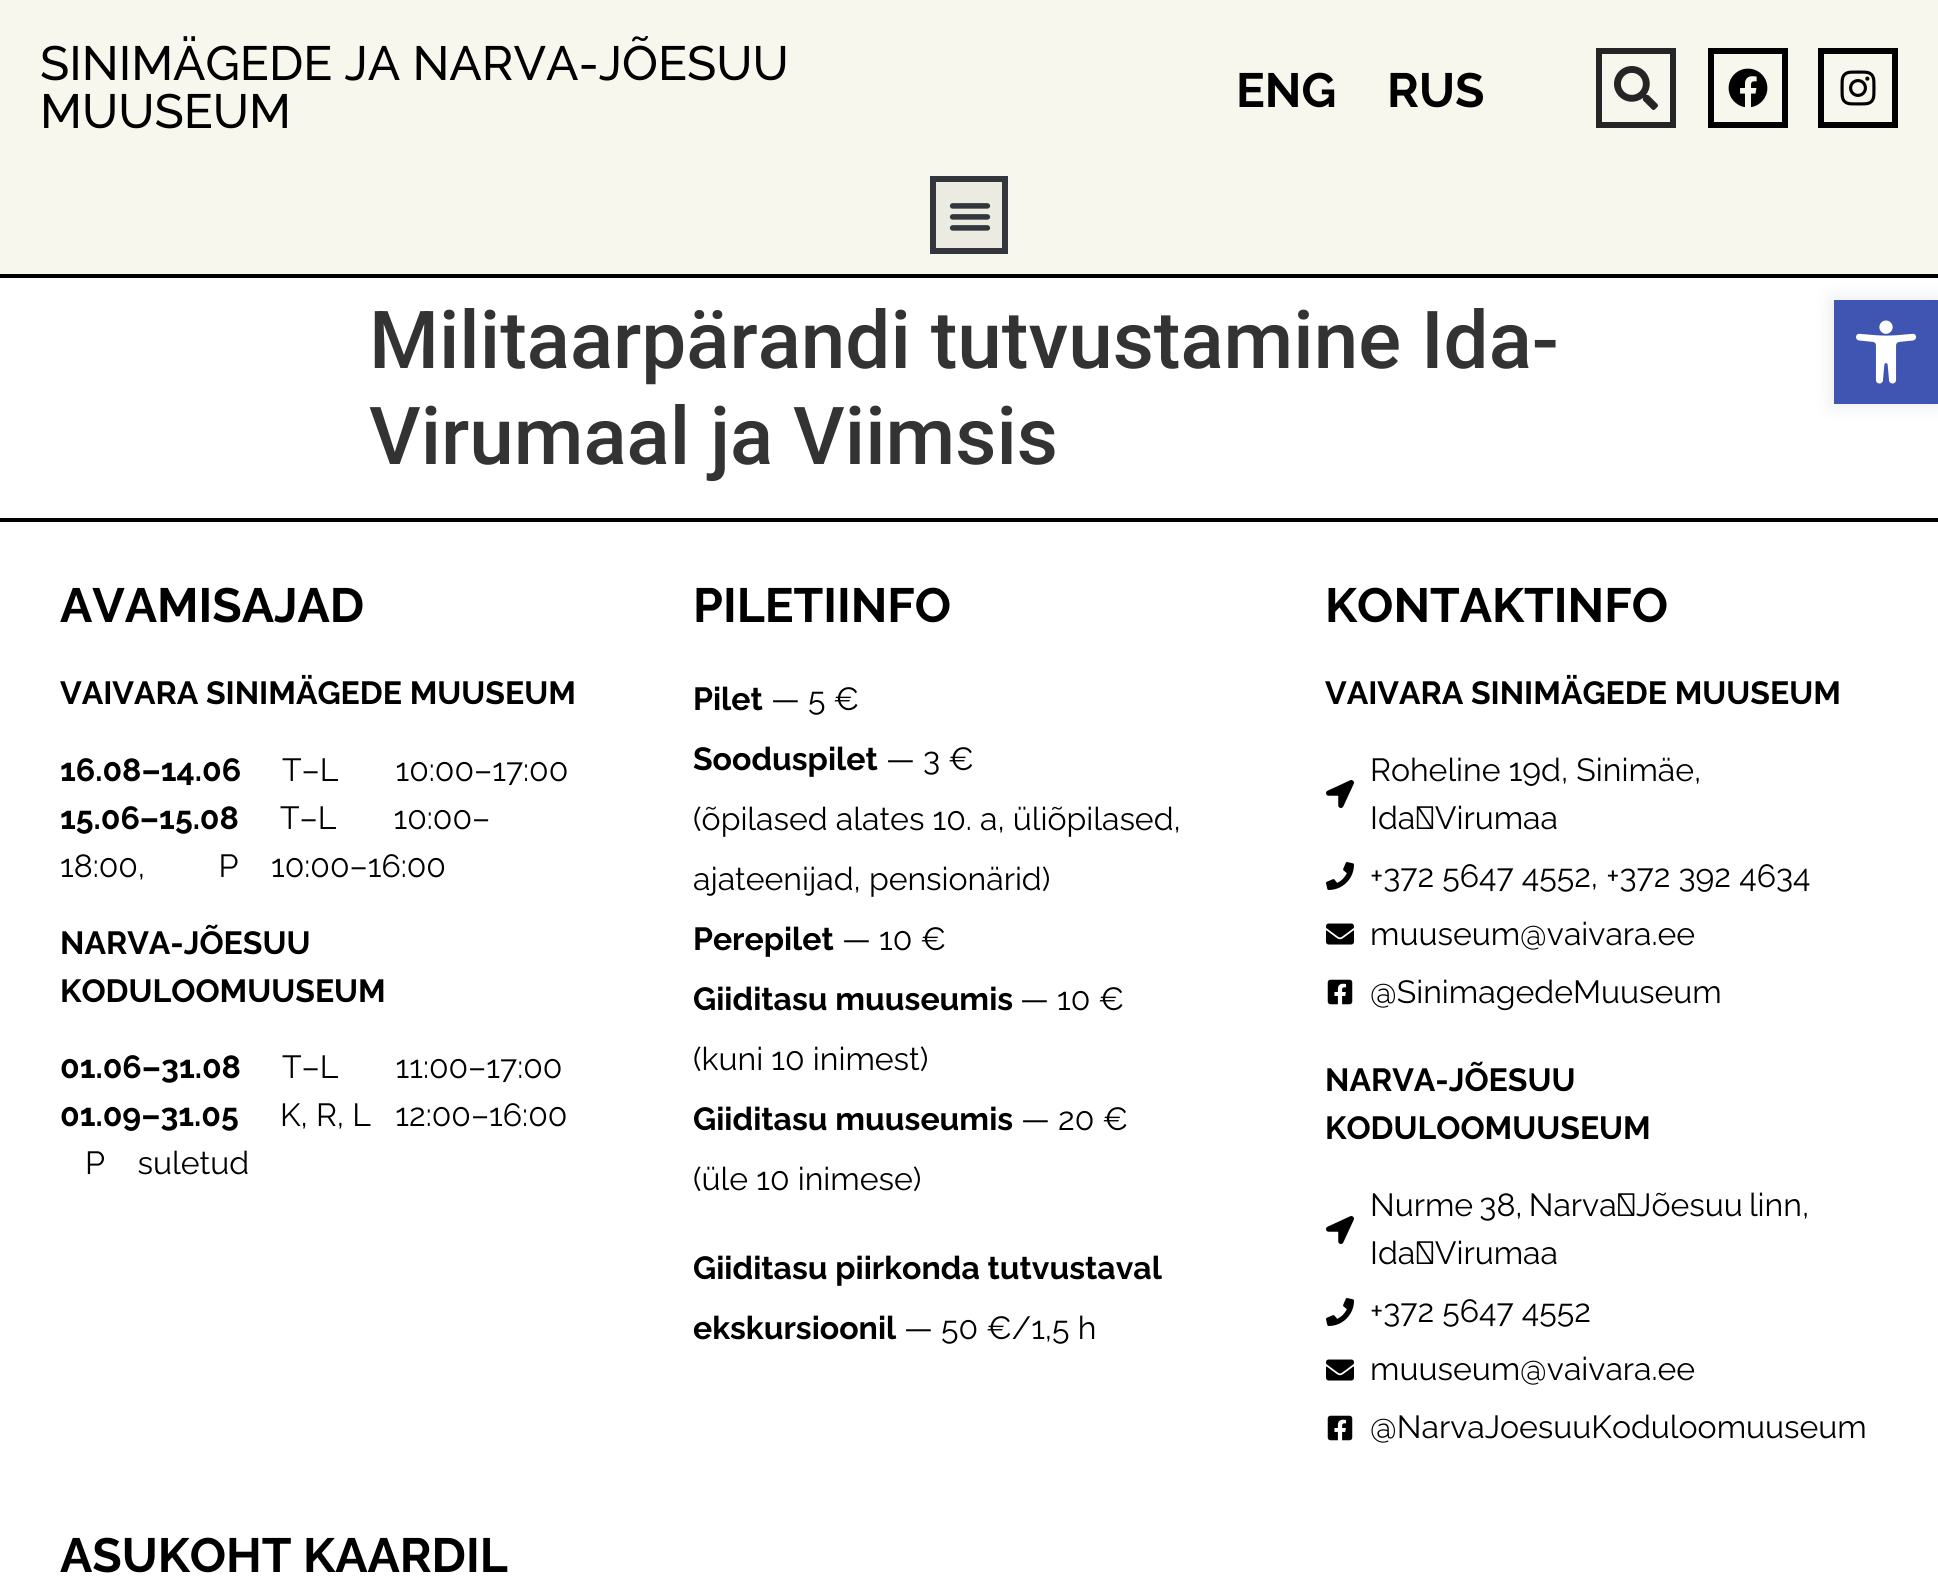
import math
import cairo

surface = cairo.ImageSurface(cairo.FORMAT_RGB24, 1938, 1583)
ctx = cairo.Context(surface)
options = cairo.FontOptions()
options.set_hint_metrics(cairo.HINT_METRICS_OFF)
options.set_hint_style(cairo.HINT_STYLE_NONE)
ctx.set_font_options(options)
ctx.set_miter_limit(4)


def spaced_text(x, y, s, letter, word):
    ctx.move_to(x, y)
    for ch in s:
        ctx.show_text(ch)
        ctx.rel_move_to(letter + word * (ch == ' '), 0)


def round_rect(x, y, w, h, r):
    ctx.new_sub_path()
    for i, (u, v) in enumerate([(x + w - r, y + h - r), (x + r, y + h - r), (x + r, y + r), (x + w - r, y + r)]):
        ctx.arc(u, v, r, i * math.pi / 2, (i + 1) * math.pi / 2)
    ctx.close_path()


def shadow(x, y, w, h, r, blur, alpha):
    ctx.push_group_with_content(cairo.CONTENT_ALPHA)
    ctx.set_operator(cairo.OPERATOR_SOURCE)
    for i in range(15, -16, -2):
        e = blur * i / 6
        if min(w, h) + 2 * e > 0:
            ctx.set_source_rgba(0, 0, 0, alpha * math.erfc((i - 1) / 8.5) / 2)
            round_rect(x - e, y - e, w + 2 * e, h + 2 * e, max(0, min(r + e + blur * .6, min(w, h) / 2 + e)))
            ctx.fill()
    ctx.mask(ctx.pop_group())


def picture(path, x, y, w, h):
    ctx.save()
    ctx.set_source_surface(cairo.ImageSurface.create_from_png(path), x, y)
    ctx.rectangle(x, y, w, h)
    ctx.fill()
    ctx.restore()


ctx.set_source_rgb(1, 1, 1)
ctx.paint()
ctx.set_source_rgb(0.969, 0.965, 0.929)
ctx.rectangle(0, 0, 1938, 274)
ctx.fill()
ctx.select_font_face("Raleway Medium")
ctx.set_font_size(48)
ctx.set_source_rgb(0, 0, 0)
ctx.move_to(40, 80)
ctx.show_text("SINIMÄGEDE JA NARVA-JÕESUU")
ctx.move_to(40, 128)
ctx.show_text("MUUSEUM")
ctx.select_font_face("Raleway", cairo.FONT_SLANT_NORMAL, cairo.FONT_WEIGHT_BOLD)
ctx.move_to(1236, 107)
ctx.show_text("ENG")
ctx.move_to(1387, 107)
ctx.show_text("RUS")
ctx.rectangle(1599, 51, 74, 74)
ctx.set_source_rgb(0.145, 0.145, 0.145)
ctx.set_line_width(6)
ctx.stroke()
picture("img1.png", 1614, 66, 44, 44)
ctx.rectangle(1711, 51, 74, 74)
ctx.set_source_rgb(0, 0, 0)
ctx.stroke()
picture("img2.png", 1728, 68, 40, 40)
ctx.rectangle(1821, 51, 74, 74)
ctx.stroke()
picture("img3.png", 1840, 70, 36, 36)
ctx.rectangle(0, 274, 1938, 4)
ctx.fill()
ctx.set_source_rgb(0.922, 0.918, 0.882)
ctx.rectangle(933, 179, 72, 72)
ctx.fill_preserve()
ctx.set_source_rgb(0.2, 0.216, 0.239)
ctx.stroke()
picture("img4.png", 949, 203, 42, 28)
ctx.select_font_face("Roboto Medium")
ctx.set_font_size(80)
ctx.set_source_rgb(0.2, 0.2, 0.2)
ctx.move_to(369, 368)
ctx.show_text("Militaarpärandi tutvustamine Ida-")
ctx.move_to(369, 464)
ctx.show_text("Virumaal ja Viimsis")
ctx.set_source_rgb(0, 0, 0)
shadow(1834, 300, 104, 104, 0, 10, 0.1)
ctx.set_source_rgb(0.251, 0.329, 0.698)
ctx.rectangle(1834, 300, 104, 104)
ctx.fill()
picture("img5.png", 1856, 320, 61, 64)
ctx.set_source_rgb(0, 0, 0)
ctx.rectangle(0, 518, 1938, 4)
ctx.fill()
ctx.select_font_face("Raleway", cairo.FONT_SLANT_NORMAL, cairo.FONT_WEIGHT_BOLD)
ctx.set_font_size(48)
ctx.move_to(60, 622)
ctx.show_text("AVAMISAJAD")
ctx.set_font_size(32)
ctx.move_to(60, 704)
ctx.show_text("VAIVARA SINIMÄGEDE MUUSEUM")
ctx.move_to(60, 781)
ctx.show_text("16.08–14.06")
ctx.select_font_face("Raleway")
ctx.move_to(282, 781)
ctx.show_text("T–L       10:00–17:00")
ctx.select_font_face("Raleway", cairo.FONT_SLANT_NORMAL, cairo.FONT_WEIGHT_BOLD)
ctx.move_to(60, 829)
ctx.show_text("15.06–15.08")
ctx.select_font_face("Raleway")
ctx.move_to(280, 829)
ctx.show_text("T–L       10:00–")
ctx.move_to(60, 877)
ctx.show_text("18:00,         P    10:00–16:00")
ctx.select_font_face("Raleway", cairo.FONT_SLANT_NORMAL, cairo.FONT_WEIGHT_BOLD)
ctx.move_to(60, 954)
ctx.show_text("NARVA-JÕESUU")
ctx.move_to(60, 1002)
ctx.show_text("KODULOOMUUSEUM")
ctx.move_to(60, 1078)
ctx.show_text("01.06–31.08")
ctx.select_font_face("Raleway")
ctx.move_to(282, 1078)
ctx.show_text("T–L       11:00–17:00")
ctx.select_font_face("Raleway", cairo.FONT_SLANT_NORMAL, cairo.FONT_WEIGHT_BOLD)
ctx.move_to(60, 1126)
ctx.show_text("01.09–31.05")
ctx.select_font_face("Raleway")
ctx.move_to(280, 1126)
ctx.show_text("K, R, L   12:00–16:00")
ctx.move_to(85, 1174)
ctx.show_text("P    suletud")
ctx.select_font_face("Raleway", cairo.FONT_SLANT_NORMAL, cairo.FONT_WEIGHT_BOLD)
ctx.set_font_size(48)
ctx.move_to(693, 622)
ctx.show_text("PILETIINFO")
ctx.set_font_size(32)
ctx.move_to(693, 710)
ctx.show_text("Pilet")
ctx.select_font_face("Raleway")
ctx.move_to(771, 710)
ctx.show_text("— 5 €")
ctx.select_font_face("Raleway", cairo.FONT_SLANT_NORMAL, cairo.FONT_WEIGHT_BOLD)
ctx.move_to(693, 770)
ctx.show_text("Sooduspilet")
ctx.select_font_face("Raleway")
ctx.move_to(886, 770)
ctx.show_text("— 3 €")
ctx.move_to(693, 830)
ctx.show_text("(õpilased alates 10. a, üliõpilased,")
ctx.move_to(693, 890)
ctx.show_text("ajateenijad, pensionärid)")
ctx.select_font_face("Raleway", cairo.FONT_SLANT_NORMAL, cairo.FONT_WEIGHT_BOLD)
ctx.move_to(693, 950)
ctx.show_text("Perepilet")
ctx.select_font_face("Raleway")
ctx.move_to(842, 950)
ctx.show_text("— 10 €")
ctx.select_font_face("Raleway", cairo.FONT_SLANT_NORMAL, cairo.FONT_WEIGHT_BOLD)
ctx.move_to(693, 1010)
ctx.show_text("Giiditasu muuseumis")
ctx.select_font_face("Raleway")
ctx.move_to(1020, 1010)
ctx.show_text("— 10 €")
ctx.move_to(693, 1070)
ctx.show_text("(kuni 10 inimest)")
ctx.select_font_face("Raleway", cairo.FONT_SLANT_NORMAL, cairo.FONT_WEIGHT_BOLD)
ctx.move_to(693, 1130)
ctx.show_text("Giiditasu muuseumis")
ctx.select_font_face("Raleway")
ctx.move_to(1021, 1130)
ctx.show_text("— 20 €")
ctx.move_to(693, 1190)
ctx.show_text("(üle 10 inimese)")
ctx.select_font_face("Raleway", cairo.FONT_SLANT_NORMAL, cairo.FONT_WEIGHT_BOLD)
ctx.move_to(693, 1279)
ctx.show_text("Giiditasu piirkonda tutvustaval")
ctx.move_to(693, 1339)
ctx.show_text("ekskursioonil")
ctx.select_font_face("Raleway")
ctx.move_to(904, 1339)
ctx.show_text("— 50 €/1,5 h")
ctx.select_font_face("Raleway", cairo.FONT_SLANT_NORMAL, cairo.FONT_WEIGHT_BOLD)
ctx.set_font_size(48)
ctx.move_to(1325, 622)
ctx.show_text("KONTAKTINFO")
ctx.set_font_size(32)
ctx.move_to(1325, 704)
ctx.show_text("VAIVARA SINIMÄGEDE MUUSEUM")
picture("img6.png", 1326, 780, 28, 28)
ctx.select_font_face("Raleway")
ctx.move_to(1370, 781)
ctx.show_text("Roheline 19d, Sinimäe,")
ctx.move_to(1370, 829)
ctx.show_text("Ida‑Virumaa")
picture("img7.png", 1326, 862, 28, 28)
ctx.move_to(1370, 887)
ctx.show_text("+372 5647 4552, +372 392 4634")
picture("img8.png", 1326, 923, 28, 22)
ctx.move_to(1370, 945)
ctx.show_text("muuseum@vaivara.ee")
picture("img9.png", 1327, 979, 26, 26)
ctx.move_to(1370, 1003)
ctx.show_text("@SinimagedeMuuseum")
ctx.select_font_face("Raleway", cairo.FONT_SLANT_NORMAL, cairo.FONT_WEIGHT_BOLD)
ctx.move_to(1325, 1091)
ctx.show_text("NARVA-JÕESUU")
ctx.move_to(1325, 1139)
ctx.show_text("KODULOOMUUSEUM")
picture("img6.png", 1326, 1216, 28, 28)
ctx.select_font_face("Raleway")
spaced_text(1370, 1216, "Nurme 38, Narva‑Jõesuu linn,", 0, -2)
ctx.move_to(1370, 1264)
ctx.show_text("Ida‑Virumaa")
picture("img7.png", 1326, 1298, 28, 28)
ctx.move_to(1370, 1322)
ctx.show_text("+372 5647 4552")
picture("img8.png", 1326, 1359, 28, 22)
ctx.move_to(1370, 1380)
ctx.show_text("muuseum@vaivara.ee")
picture("img9.png", 1327, 1415, 26, 26)
ctx.move_to(1370, 1438)
ctx.show_text("@NarvaJoesuuKoduloomuuseum")
ctx.select_font_face("Raleway", cairo.FONT_SLANT_NORMAL, cairo.FONT_WEIGHT_BOLD)
ctx.set_font_size(48)
ctx.move_to(60, 1572)
ctx.show_text("ASUKOHT KAARDIL")
surface.write_to_png("page.png")
